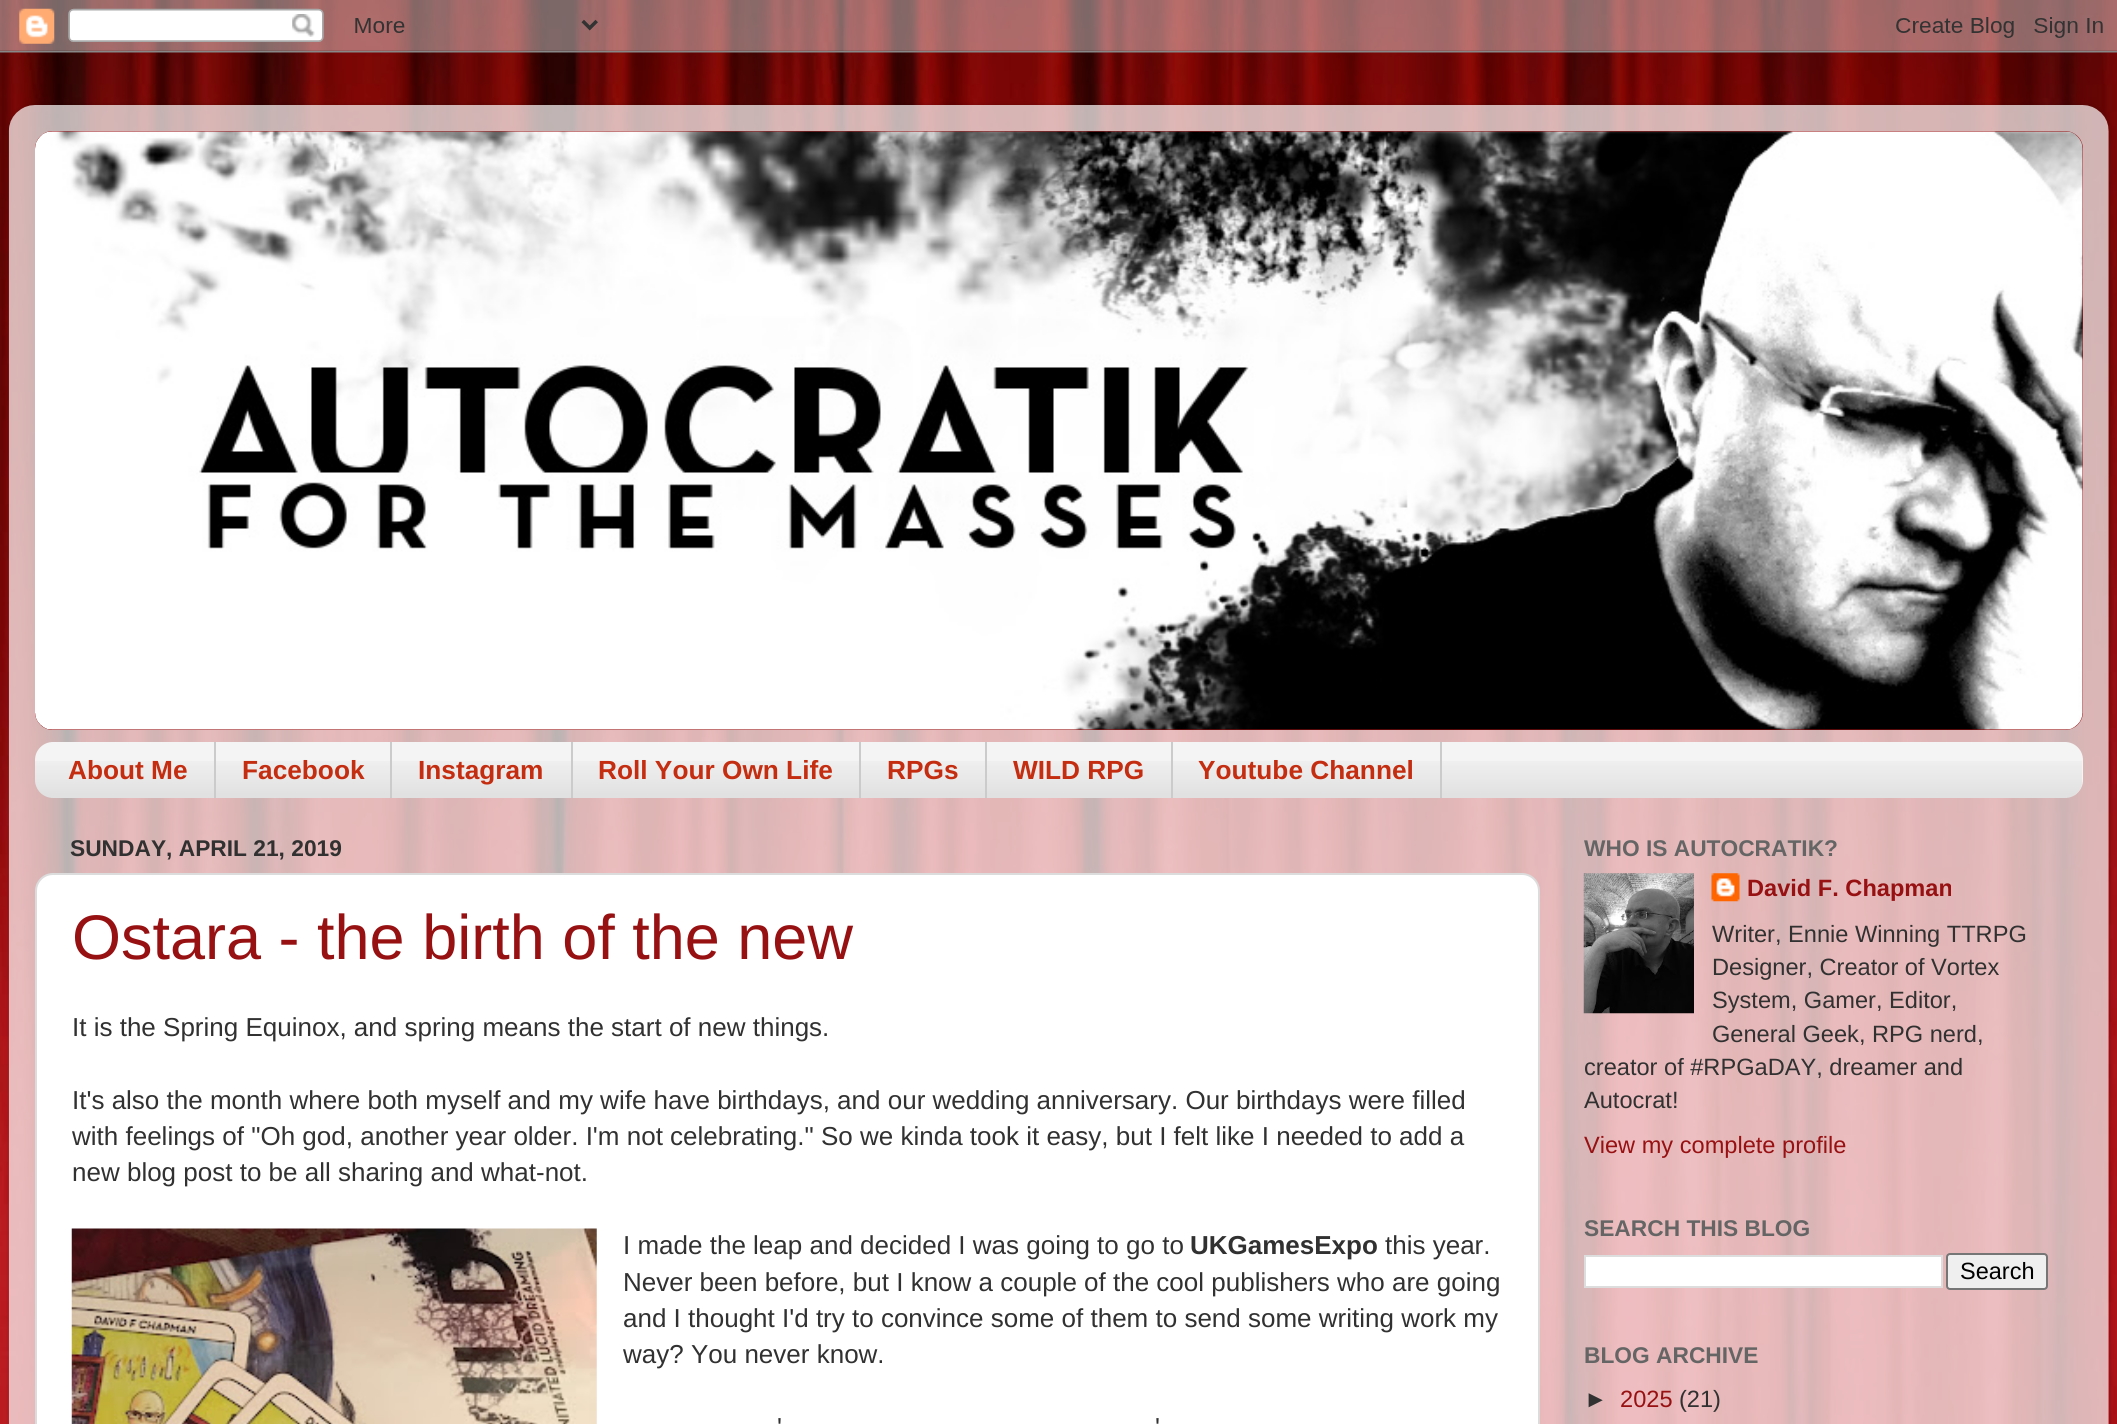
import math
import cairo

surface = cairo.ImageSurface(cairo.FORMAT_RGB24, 2117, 1424)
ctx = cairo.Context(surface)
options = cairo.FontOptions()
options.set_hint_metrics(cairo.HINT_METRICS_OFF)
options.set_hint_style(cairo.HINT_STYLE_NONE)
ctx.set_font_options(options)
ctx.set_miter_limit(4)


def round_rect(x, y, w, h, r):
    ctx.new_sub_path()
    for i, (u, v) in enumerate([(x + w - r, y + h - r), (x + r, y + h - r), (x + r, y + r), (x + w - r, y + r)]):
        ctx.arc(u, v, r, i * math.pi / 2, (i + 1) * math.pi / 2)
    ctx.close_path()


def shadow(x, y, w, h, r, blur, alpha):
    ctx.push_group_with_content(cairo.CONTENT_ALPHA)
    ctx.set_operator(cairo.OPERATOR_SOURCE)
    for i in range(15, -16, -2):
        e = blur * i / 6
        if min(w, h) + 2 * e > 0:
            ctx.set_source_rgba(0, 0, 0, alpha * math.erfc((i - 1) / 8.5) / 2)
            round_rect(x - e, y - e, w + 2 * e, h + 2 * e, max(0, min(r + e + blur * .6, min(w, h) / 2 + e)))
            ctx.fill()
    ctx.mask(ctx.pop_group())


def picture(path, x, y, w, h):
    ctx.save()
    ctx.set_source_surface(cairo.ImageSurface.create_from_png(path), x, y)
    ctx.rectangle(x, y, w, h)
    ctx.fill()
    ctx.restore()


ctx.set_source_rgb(1, 1, 1)
ctx.paint()
picture("img1.png", 0, 0, 2117, 1424)
picture("img2.png", 0, 0, 2117, 53)
ctx.save()
ctx.set_fill_rule(cairo.FILL_RULE_EVEN_ODD)
ctx.new_path()
ctx.move_to(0, 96)
ctx.line_to(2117, 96)
ctx.line_to(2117, 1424)
ctx.line_to(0, 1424)
ctx.close_path()
ctx.move_to(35, 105)
ctx.line_to(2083, 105)
ctx.curve_to(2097.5, 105, 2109, 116.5, 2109, 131)
ctx.line_to(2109, 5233)
ctx.curve_to(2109, 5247.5, 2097.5, 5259, 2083, 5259)
ctx.line_to(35, 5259)
ctx.curve_to(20.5, 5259, 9, 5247.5, 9, 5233)
ctx.line_to(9, 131)
ctx.curve_to(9, 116.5, 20.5, 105, 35, 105)
ctx.close_path()
ctx.clip()
ctx.set_source_rgb(0, 0, 0)
shadow(9, 105, 2100, 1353, 26, 2.5, 0.15)
ctx.restore()
picture("img3.png", 8, 105, 2101, 1319)
ctx.set_source_rgb(0.592, 0.063, 0.071)
round_rect(35, 131, 2048, 599, 18)
ctx.fill()
picture("img4.png", 35, 131, 2048, 77)
picture("img5.png", 35, 131, 2048, 599)
ctx.set_source_rgb(0.957, 0.957, 0.957)
round_rect(35, 742, 2048, 56, 18)
ctx.fill()
picture("img6.png", 35, 761, 2047, 37)
ctx.set_source_rgb(0.796, 0.796, 0.796)
ctx.rectangle(214, 742, 2, 56)
ctx.fill()
ctx.select_font_face("Liberation Sans", cairo.FONT_SLANT_NORMAL, cairo.FONT_WEIGHT_BOLD)
ctx.set_font_size(26.25)
ctx.set_source_rgb(0.769, 0.176, 0.063)
ctx.move_to(68, 779)
ctx.show_text("About Me")
ctx.set_source_rgb(0.796, 0.796, 0.796)
ctx.rectangle(390, 742, 2, 56)
ctx.fill()
ctx.set_source_rgb(0.769, 0.176, 0.063)
ctx.move_to(242, 779)
ctx.show_text("Facebook")
ctx.set_source_rgb(0.796, 0.796, 0.796)
ctx.rectangle(571, 742, 2, 56)
ctx.fill()
ctx.set_source_rgb(0.769, 0.176, 0.063)
ctx.move_to(418, 779)
ctx.show_text("Instagram")
ctx.set_source_rgb(0.796, 0.796, 0.796)
ctx.rectangle(859, 742, 2, 56)
ctx.fill()
ctx.set_source_rgb(0.769, 0.176, 0.063)
ctx.move_to(598, 779)
ctx.show_text("Roll Your Own Life")
ctx.set_source_rgb(0.796, 0.796, 0.796)
ctx.rectangle(985, 742, 2, 56)
ctx.fill()
ctx.set_source_rgb(0.769, 0.176, 0.063)
ctx.move_to(887, 779)
ctx.show_text("RPGs")
ctx.set_source_rgb(0.796, 0.796, 0.796)
ctx.rectangle(1171, 742, 2, 56)
ctx.fill()
ctx.set_source_rgb(0.769, 0.176, 0.063)
ctx.move_to(1013, 779)
ctx.show_text("WILD RPG")
ctx.set_source_rgb(0.796, 0.796, 0.796)
ctx.rectangle(1440, 742, 2, 56)
ctx.fill()
ctx.set_source_rgb(0.769, 0.176, 0.063)
ctx.move_to(1198, 779)
ctx.show_text("Youtube Channel")
ctx.set_font_size(22.75)
ctx.set_source_rgb(0.192, 0.192, 0.192)
ctx.move_to(70, 856)
ctx.show_text("SUNDAY, APRIL 21, 2019")
ctx.set_source_rgb(1, 1, 1)
round_rect(36, 874, 1503, 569, 17)
ctx.fill_preserve()
ctx.set_source_rgb(0.863, 0.863, 0.863)
ctx.stroke()
ctx.select_font_face("Liberation Sans")
ctx.set_font_size(63)
ctx.set_source_rgb(0.592, 0.063, 0.071)
ctx.move_to(72, 959)
ctx.show_text("Ostara - the birth of the new")
ctx.set_font_size(26)
ctx.set_source_rgb(0.192, 0.192, 0.192)
ctx.move_to(72, 1036)
ctx.show_text("It is the Spring Equinox, and spring means the start of new things.")
ctx.move_to(72, 1109)
ctx.show_text("It's also the month where both myself and my wife have birthdays, and our wedding anniversary. Our birthdays were filled")
ctx.move_to(72, 1145)
ctx.show_text("with feelings of \"Oh god, another year older. I'm not celebrating.\" So we kinda took it easy, but I felt like I needed to add a")
ctx.move_to(72, 1181)
ctx.show_text("new blog post to be all sharing and what-not.")
picture("img7.png", 71, 1228, 526, 196)
ctx.move_to(623, 1254)
ctx.show_text("I made the leap and decided I was going to go to")
ctx.select_font_face("Liberation Sans", cairo.FONT_SLANT_NORMAL, cairo.FONT_WEIGHT_BOLD)
ctx.move_to(1190, 1254)
ctx.show_text("UKGamesExpo")
ctx.select_font_face("Liberation Sans")
ctx.move_to(1385, 1254)
ctx.show_text("this year.")
ctx.move_to(623, 1291)
ctx.show_text("Never been before, but I know a couple of the cool publishers who are going")
ctx.move_to(623, 1327)
ctx.show_text("and I thought I'd try to convince some of them to send some writing work my")
ctx.move_to(623, 1363)
ctx.show_text("way? You never know.")
ctx.move_to(777, 1436)
ctx.show_text("'")
ctx.move_to(1155, 1436)
ctx.show_text("'")
ctx.select_font_face("Liberation Sans", cairo.FONT_SLANT_NORMAL, cairo.FONT_WEIGHT_BOLD)
ctx.set_font_size(22.75)
ctx.set_source_rgb(0.396, 0.396, 0.396)
ctx.move_to(1584, 856)
ctx.show_text("WHO IS AUTOCRATIK?")
picture("img8.png", 1583, 873, 111, 141)
picture("img9.png", 1711, 873, 29, 29)
ctx.set_font_size(23.6)
ctx.set_source_rgb(0.592, 0.063, 0.071)
ctx.move_to(1747, 896)
ctx.show_text("David F. Chapman")
ctx.select_font_face("Liberation Sans")
ctx.set_source_rgb(0.192, 0.192, 0.192)
ctx.move_to(1712, 942)
ctx.show_text("Writer, Ennie Winning TTRPG")
ctx.move_to(1712, 975)
ctx.show_text("Designer, Creator of Vortex")
ctx.move_to(1712, 1008)
ctx.show_text("System, Gamer, Editor,")
ctx.move_to(1712, 1042)
ctx.show_text("General Geek, RPG nerd,")
ctx.move_to(1584, 1075)
ctx.show_text("creator of #RPGaDAY, dreamer and")
ctx.move_to(1584, 1108)
ctx.show_text("Autocrat!")
ctx.set_source_rgb(0.592, 0.063, 0.071)
ctx.move_to(1584, 1153)
ctx.show_text("View my complete profile")
ctx.select_font_face("Liberation Sans", cairo.FONT_SLANT_NORMAL, cairo.FONT_WEIGHT_BOLD)
ctx.set_font_size(22.75)
ctx.set_source_rgb(0.396, 0.396, 0.396)
ctx.move_to(1584, 1236)
ctx.show_text("SEARCH THIS BLOG")
ctx.set_source_rgb(1, 1, 1)
ctx.rectangle(1585, 1256, 357, 31)
ctx.fill_preserve()
ctx.set_source_rgb(0.867, 0.867, 0.867)
ctx.stroke()
ctx.set_source_rgb(0.937, 0.937, 0.937)
round_rect(1947, 1254, 100, 35, 3)
ctx.fill_preserve()
ctx.set_source_rgb(0.463, 0.463, 0.463)
ctx.stroke()
ctx.select_font_face("Liberation Sans")
ctx.set_font_size(23.5)
ctx.set_source_rgb(0, 0, 0)
ctx.move_to(1960, 1279)
ctx.show_text("Search")
ctx.select_font_face("Liberation Sans", cairo.FONT_SLANT_NORMAL, cairo.FONT_WEIGHT_BOLD)
ctx.set_font_size(22.75)
ctx.set_source_rgb(0.396, 0.396, 0.396)
ctx.move_to(1584, 1363)
ctx.show_text("BLOG ARCHIVE")
ctx.select_font_face("Liberation Sans")
ctx.set_font_size(23.6)
ctx.set_source_rgb(0.192, 0.192, 0.192)
ctx.move_to(1584, 1407)
ctx.show_text("►")
ctx.set_source_rgb(0.592, 0.063, 0.071)
ctx.move_to(1620, 1407)
ctx.show_text("2025")
ctx.set_source_rgb(0.192, 0.192, 0.192)
ctx.move_to(1679, 1407)
ctx.show_text("(21)")
surface.write_to_png("page.png")
